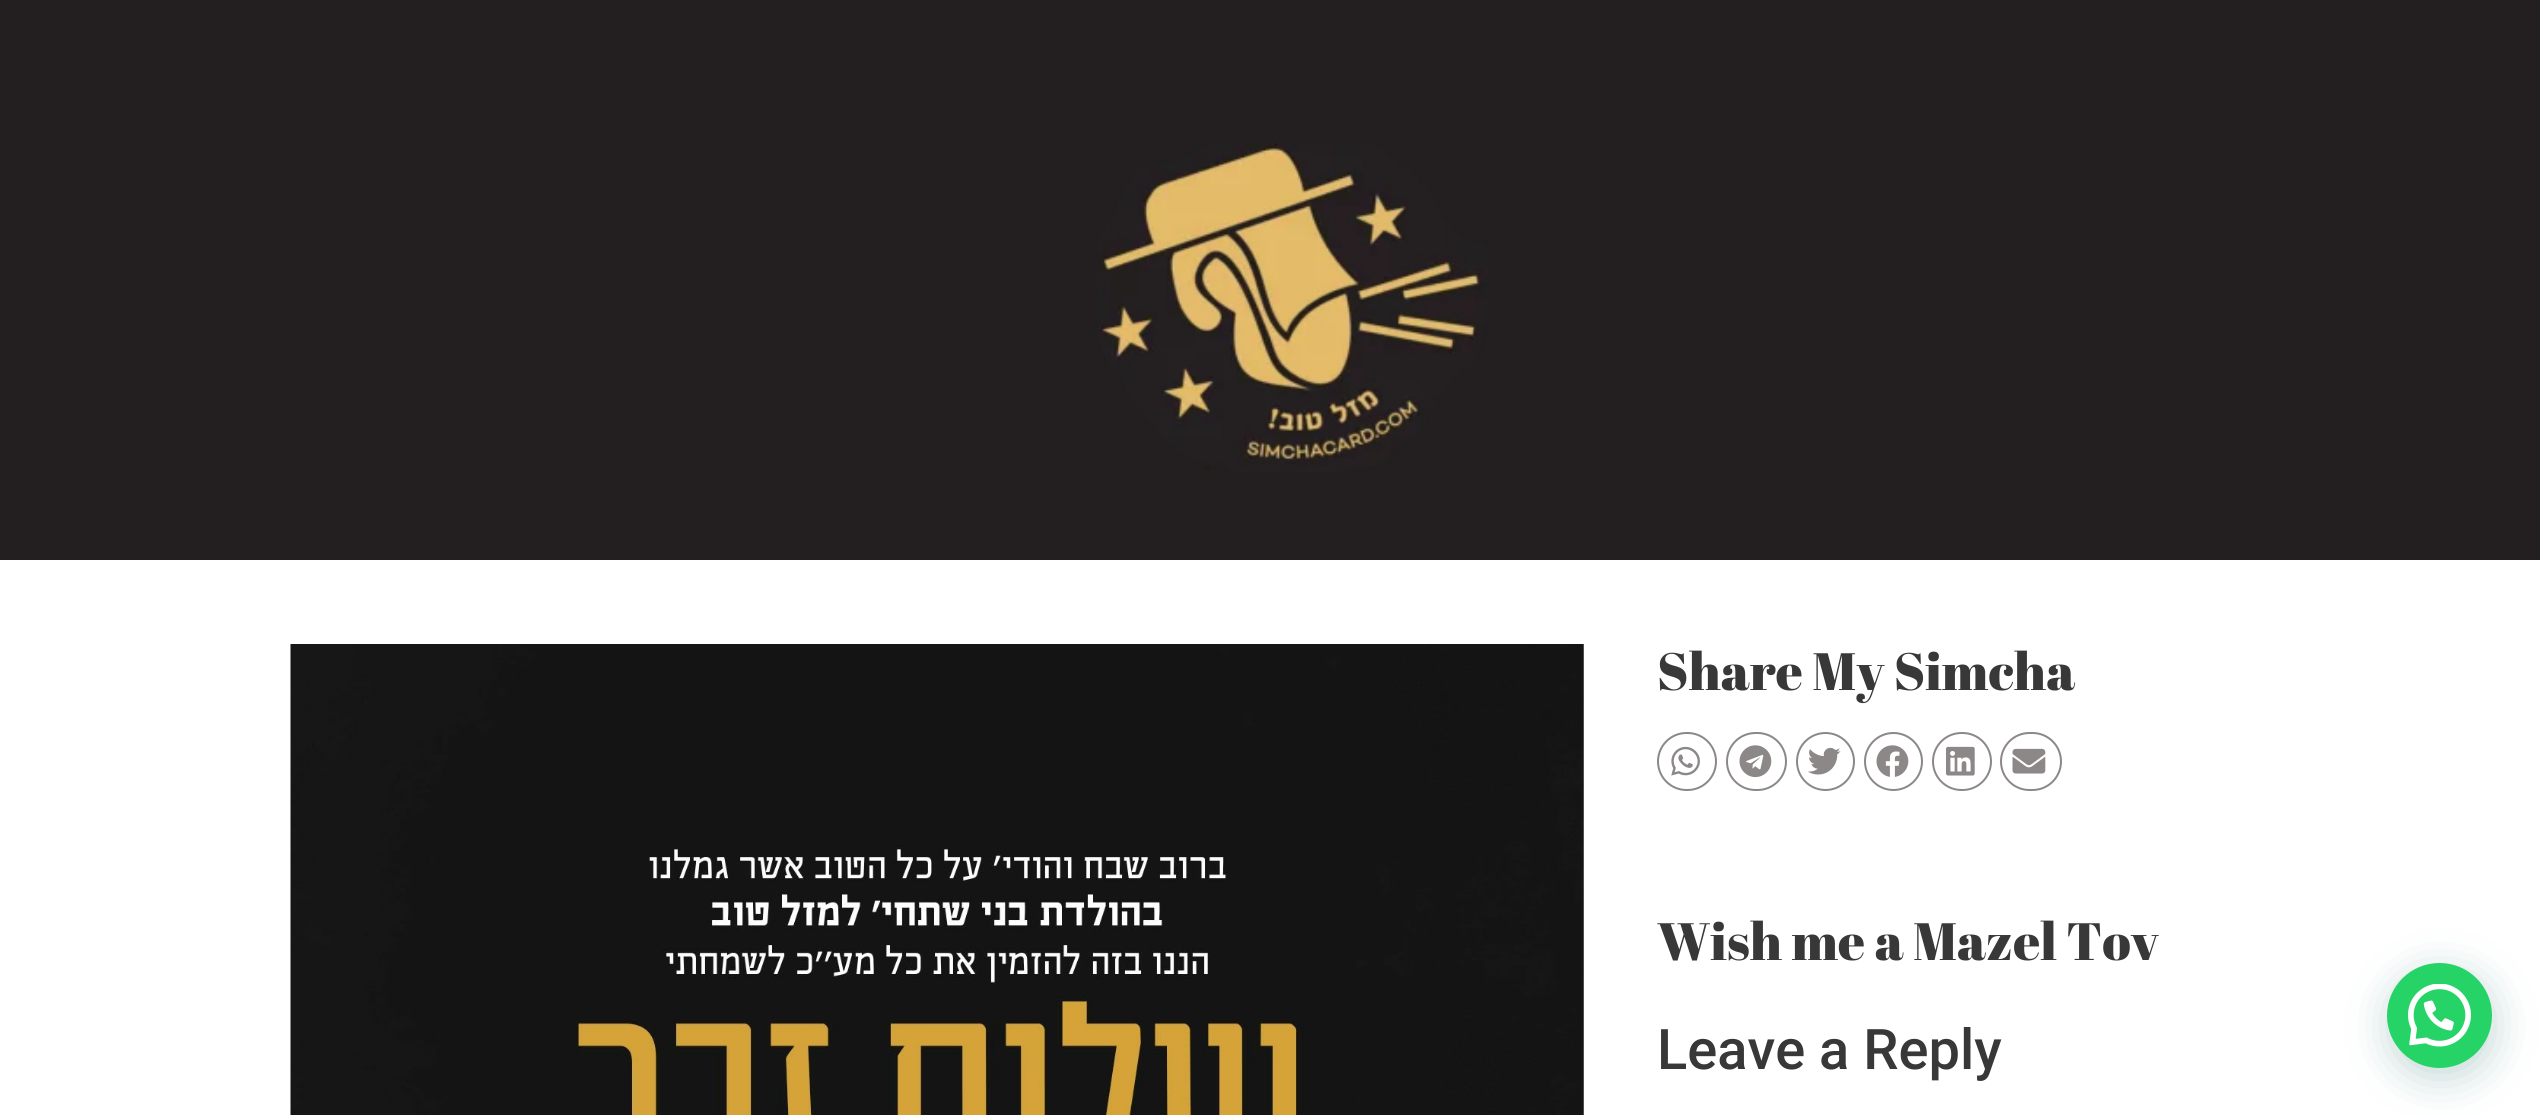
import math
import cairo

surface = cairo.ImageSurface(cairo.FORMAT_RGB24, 2540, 1115)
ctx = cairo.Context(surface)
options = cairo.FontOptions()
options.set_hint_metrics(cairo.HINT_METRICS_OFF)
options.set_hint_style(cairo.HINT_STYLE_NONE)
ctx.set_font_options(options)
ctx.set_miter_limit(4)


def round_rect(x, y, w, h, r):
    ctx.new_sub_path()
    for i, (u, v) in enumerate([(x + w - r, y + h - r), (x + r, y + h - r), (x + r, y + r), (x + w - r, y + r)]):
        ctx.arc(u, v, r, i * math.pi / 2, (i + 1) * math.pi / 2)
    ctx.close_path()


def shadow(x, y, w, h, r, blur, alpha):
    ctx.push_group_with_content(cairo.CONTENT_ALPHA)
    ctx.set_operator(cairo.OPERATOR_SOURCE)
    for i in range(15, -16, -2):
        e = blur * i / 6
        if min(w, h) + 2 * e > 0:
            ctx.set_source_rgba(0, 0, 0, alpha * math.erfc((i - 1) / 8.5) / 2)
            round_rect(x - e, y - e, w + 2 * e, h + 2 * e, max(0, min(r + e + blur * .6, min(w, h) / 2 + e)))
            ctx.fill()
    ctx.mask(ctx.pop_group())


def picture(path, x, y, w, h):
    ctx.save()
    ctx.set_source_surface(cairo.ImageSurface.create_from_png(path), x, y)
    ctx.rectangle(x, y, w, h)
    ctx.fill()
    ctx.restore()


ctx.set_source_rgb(1, 1, 1)
ctx.paint()
ctx.set_source_rgb(0.137, 0.122, 0.125)
ctx.rectangle(0, 0, 2540, 560)
ctx.fill()
picture("img1.png", 1097, 143, 392, 329)
picture("img2.png", 290, 644, 1294, 471)
ctx.select_font_face("Abril Fatface")
ctx.set_font_size(52.5)
ctx.set_source_rgb(0.22, 0.22, 0.22)
ctx.move_to(1657, 690)
ctx.show_text("Share My Simcha")
round_rect(1658, 733, 58, 57, 28.5)
ctx.set_source_rgb(0.553, 0.533, 0.533)
ctx.stroke()
picture("img3.png", 1671, 746, 29, 30)
round_rect(1727, 733, 59, 57, 28.5)
ctx.stroke()
picture("img4.png", 1739, 745, 33, 33)
ctx.arc(1825.5, 761.5, 28.5, 0, 2 * math.pi)
ctx.stroke()
picture("img5.png", 1808, 747, 33, 28)
ctx.arc(1893.5, 761.5, 28.5, 0, 2 * math.pi)
ctx.stroke()
picture("img6.png", 1876, 745, 33, 32)
round_rect(1933, 733, 58, 57, 28.5)
ctx.stroke()
picture("img7.png", 1946, 746, 29, 30)
round_rect(2001, 733, 60, 57, 28.5)
ctx.stroke()
picture("img8.png", 2012, 748, 34, 26)
ctx.set_source_rgb(0.22, 0.22, 0.22)
ctx.move_to(1657, 960)
ctx.show_text("Wish me a Mazel Tov")
ctx.select_font_face("Roboto Medium")
ctx.set_font_size(56)
ctx.move_to(1657, 1069)
ctx.show_text("Leave a Reply")
ctx.set_source_rgb(0.027, 0.369, 0.329)
shadow(2389, 973, 105, 105, 52.5, 21, 0.24)
ctx.set_source_rgb(0.145, 0.827, 0.4)
ctx.arc(2439.5, 1015.5, 52.5, 0, 2 * math.pi)
ctx.fill()
picture("img9.png", 2408, 984, 63, 63)
surface.write_to_png("page.png")
